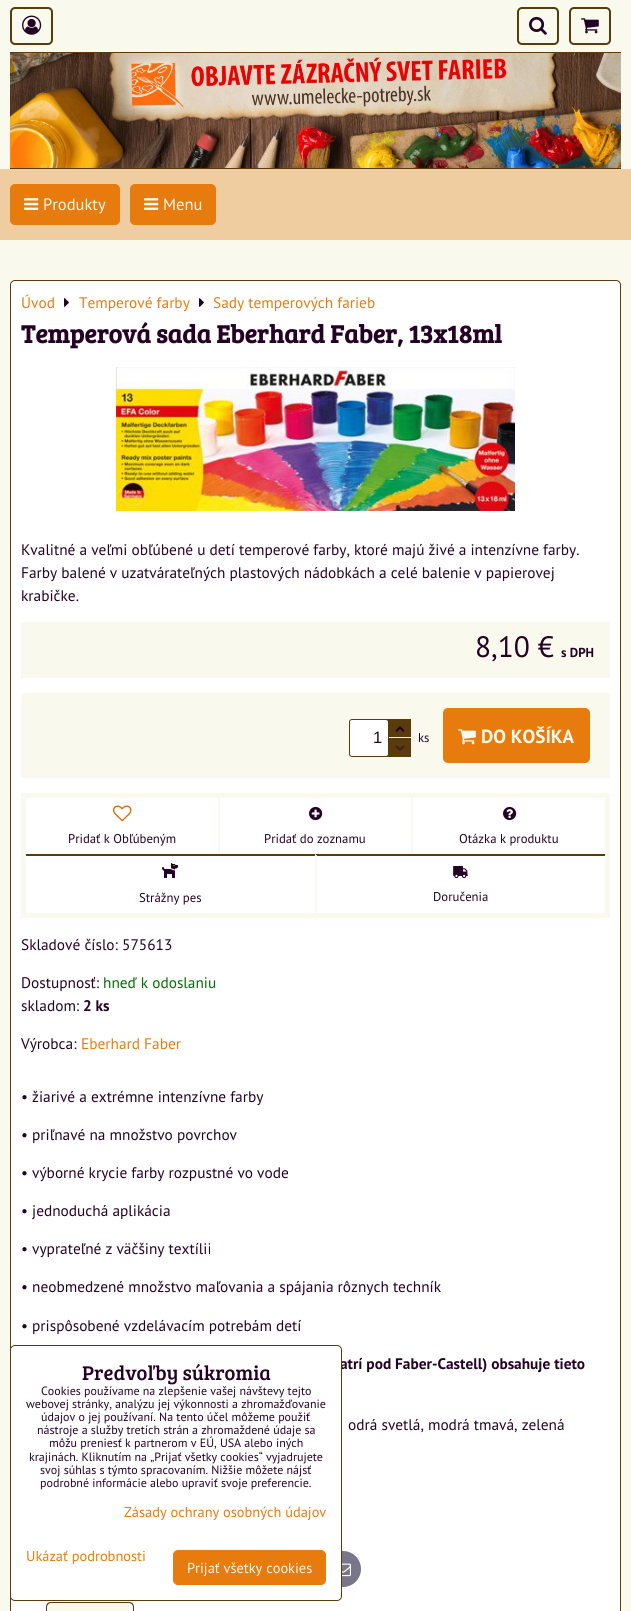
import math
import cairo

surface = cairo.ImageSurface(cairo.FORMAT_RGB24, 631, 1611)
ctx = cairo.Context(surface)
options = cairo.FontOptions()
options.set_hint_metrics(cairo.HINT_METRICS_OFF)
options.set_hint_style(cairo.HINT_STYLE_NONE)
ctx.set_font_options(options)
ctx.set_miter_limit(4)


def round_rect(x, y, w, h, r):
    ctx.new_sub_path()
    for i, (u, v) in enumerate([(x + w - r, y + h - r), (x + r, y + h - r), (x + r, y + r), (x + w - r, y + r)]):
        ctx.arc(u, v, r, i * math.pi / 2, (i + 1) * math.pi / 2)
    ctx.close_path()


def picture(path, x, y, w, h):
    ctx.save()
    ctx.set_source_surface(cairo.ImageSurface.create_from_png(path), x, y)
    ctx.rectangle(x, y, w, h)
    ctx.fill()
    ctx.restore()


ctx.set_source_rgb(0.98, 0.976, 0.929)
ctx.paint()
round_rect(11, 8, 41, 36, 4)
ctx.set_source_rgb(0.349, 0.231, 0.047)
ctx.stroke()
picture("img1.png", 22, 15, 20, 20)
round_rect(518, 8, 40, 36, 4)
ctx.stroke()
picture("img2.png", 529, 16, 18, 19)
round_rect(570, 8, 40, 36, 4)
ctx.stroke()
picture("img3.png", 581, 18, 18, 16)
ctx.rectangle(10, 52, 611, 1)
ctx.fill()
ctx.rectangle(10, 168, 611, 1)
ctx.fill()
picture("img4.png", 10, 53, 611, 115)
ctx.set_source_rgb(0.941, 0.804, 0.631)
ctx.rectangle(0, 169, 631, 71)
ctx.fill()
ctx.set_source_rgb(0.91, 0.482, 0.055)
round_rect(10.5, 184.5, 109, 40, 4.5)
ctx.fill_preserve()
ctx.set_line_width(1)
ctx.stroke()
picture("img5.png", 24, 198, 15, 12)
ctx.select_font_face("PT Sans")
ctx.set_font_size(16.5)
ctx.set_source_rgb(0.98, 0.976, 0.929)
ctx.move_to(43, 210)
ctx.show_text("Produkty")
ctx.set_source_rgb(0.91, 0.482, 0.055)
round_rect(130.5, 184.5, 85, 40, 4.5)
ctx.fill_preserve()
ctx.stroke()
picture("img5.png", 144, 198, 15, 12)
ctx.set_source_rgb(0.98, 0.976, 0.929)
ctx.move_to(163, 210)
ctx.show_text("Menu")
ctx.set_source_rgb(1, 1, 1)
round_rect(10.5, 280.5, 610, 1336, 4.5)
ctx.fill_preserve()
ctx.set_source_rgb(0.349, 0.231, 0.047)
ctx.stroke()
ctx.set_font_size(15.35)
ctx.set_source_rgb(0.91, 0.482, 0.055)
ctx.move_to(21, 308)
ctx.show_text("Úvod")
picture("img6.png", 64, 298, 5, 9)
ctx.move_to(79, 308)
ctx.show_text("Temperové farby")
picture("img6.png", 199, 298, 5, 9)
ctx.move_to(213, 308)
ctx.show_text("Sady temperových farieb")
ctx.select_font_face("Bree Serif", cairo.FONT_SLANT_NORMAL, cairo.FONT_WEIGHT_BOLD)
ctx.set_font_size(25.6)
ctx.set_source_rgb(0.149, 0.004, 0.149)
ctx.move_to(21, 343)
ctx.show_text("Temperová sada Eberhard Faber, 13x18ml")
picture("img7.png", 116, 367, 399, 144)
ctx.select_font_face("PT Sans")
ctx.set_font_size(15.35)
ctx.move_to(21, 555)
ctx.show_text("Kvalitné a veľmi obľúbené u detí temperové farby, ktoré majú živé a intenzívne farby.")
ctx.move_to(21, 578)
ctx.show_text("Farby balené v uzatvárateľných plastových nádobkách a celé balenie v papierovej")
ctx.move_to(21, 601)
ctx.show_text("krabičke.")
ctx.set_source_rgb(0.98, 0.976, 0.929)
ctx.rectangle(21, 622, 589, 56)
ctx.fill()
ctx.set_font_size(29.5)
ctx.set_source_rgb(0.149, 0.004, 0.149)
ctx.move_to(475, 657)
ctx.show_text("8,10 €")
ctx.select_font_face("PT Sans", cairo.FONT_SLANT_NORMAL, cairo.FONT_WEIGHT_BOLD)
ctx.set_font_size(13)
ctx.move_to(561, 657)
ctx.show_text("s DPH")
ctx.set_source_rgb(0.98, 0.976, 0.929)
ctx.rectangle(21, 693, 589, 85)
ctx.fill()
ctx.set_source_rgb(0.349, 0.231, 0.047)
ctx.rectangle(386, 719, 25, 38)
ctx.fill()
ctx.set_source_rgb(1, 1, 1)
round_rect(349.5, 719.5, 39, 37, 2.5)
ctx.fill_preserve()
ctx.set_source_rgb(0.349, 0.231, 0.047)
ctx.stroke()
ctx.select_font_face("Liberation Sans")
ctx.set_font_size(16.5)
ctx.set_source_rgb(0.149, 0.004, 0.149)
ctx.move_to(373, 743)
ctx.show_text("1")
picture("img8.png", 395, 726, 10, 6)
ctx.set_source_rgb(0.98, 0.976, 0.929)
ctx.rectangle(389, 737, 22, 1)
ctx.fill()
picture("img9.png", 395, 745, 10, 6)
ctx.select_font_face("PT Sans")
ctx.set_font_size(12.75)
ctx.set_source_rgb(0.149, 0.004, 0.149)
ctx.move_to(418, 742)
ctx.show_text("ks")
ctx.set_source_rgb(0.91, 0.482, 0.055)
round_rect(443, 708, 147, 55, 5)
ctx.fill()
picture("img10.png", 458, 729, 18, 16)
ctx.select_font_face("PT Sans", cairo.FONT_SLANT_NORMAL, cairo.FONT_WEIGHT_BOLD)
ctx.set_font_size(19)
ctx.set_source_rgb(0.98, 0.976, 0.929)
ctx.move_to(481, 743)
ctx.show_text("DO KOŠÍKA")
ctx.rectangle(23.5, 795.5, 584, 120)
ctx.set_line_width(5)
ctx.stroke()
picture("img11.png", 113, 805, 19, 17)
ctx.select_font_face("PT Sans")
ctx.set_font_size(12.75)
ctx.set_source_rgb(0.149, 0.004, 0.149)
ctx.move_to(68, 843)
ctx.show_text("Pridať k Obľúbeným")
ctx.set_source_rgb(0.98, 0.976, 0.929)
ctx.rectangle(218, 798, 2, 56)
ctx.fill()
picture("img12.png", 309, 806, 14, 15)
ctx.set_source_rgb(0.149, 0.004, 0.149)
ctx.move_to(264, 843)
ctx.show_text("Pridať do zoznamu")
ctx.set_source_rgb(0.98, 0.976, 0.929)
ctx.rectangle(411, 798, 2, 56)
ctx.fill()
picture("img13.png", 503, 806, 14, 15)
ctx.set_source_rgb(0.149, 0.004, 0.149)
ctx.move_to(459, 843)
ctx.show_text("Otázka k produktu")
ctx.set_source_rgb(0.349, 0.231, 0.047)
ctx.rectangle(26, 854, 289, 2)
ctx.fill()
picture("img14.png", 162, 863, 16, 15)
ctx.set_source_rgb(0.149, 0.004, 0.149)
ctx.move_to(139, 902)
ctx.show_text("Strážny pes")
ctx.set_source_rgb(0.349, 0.231, 0.047)
ctx.new_path()
ctx.move_to(315, 854)
ctx.line_to(605, 854)
ctx.line_to(605, 856)
ctx.line_to(317, 856)
ctx.close_path()
ctx.fill()
ctx.set_source_rgb(0.98, 0.976, 0.929)
ctx.new_path()
ctx.move_to(315, 913)
ctx.line_to(315, 854)
ctx.line_to(317, 856)
ctx.line_to(317, 913)
ctx.close_path()
ctx.fill()
picture("img15.png", 453, 866, 15, 13)
ctx.set_source_rgb(0.149, 0.004, 0.149)
ctx.move_to(433, 901)
ctx.show_text("Doručenia")
ctx.set_font_size(15.35)
ctx.move_to(21, 950)
ctx.show_text("Skladové číslo: 575613")
ctx.move_to(21, 988)
ctx.show_text("Dostupnosť:")
ctx.set_source_rgb(0, 0.439, 0)
ctx.move_to(103, 988)
ctx.show_text("hneď k odoslaniu")
ctx.set_source_rgb(0.149, 0.004, 0.149)
ctx.move_to(21, 1011)
ctx.show_text("skladom:")
ctx.select_font_face("PT Sans", cairo.FONT_SLANT_NORMAL, cairo.FONT_WEIGHT_BOLD)
ctx.move_to(83, 1011)
ctx.show_text("2 ks")
ctx.select_font_face("PT Sans")
ctx.move_to(21, 1049)
ctx.show_text("Výrobca:")
ctx.set_source_rgb(0.91, 0.482, 0.055)
ctx.move_to(81, 1049)
ctx.show_text("Eberhard Faber")
ctx.set_source_rgb(0.149, 0.004, 0.149)
ctx.move_to(21, 1102)
ctx.show_text("• žiarivé a extrémne intenzívne farby")
ctx.move_to(21, 1140)
ctx.show_text("• priľnavé na množstvo povrchov")
ctx.move_to(21, 1178)
ctx.show_text("• výborné krycie farby rozpustné vo vode")
ctx.move_to(21, 1216)
ctx.show_text("• jednoduchá aplikácia")
ctx.move_to(21, 1254)
ctx.show_text("• vyprateľné z väčšiny textílii")
ctx.move_to(21, 1292)
ctx.show_text("• neobmedzené množstvo maľovania a spájania rôznych techník")
ctx.move_to(21, 1331)
ctx.show_text("• prispôsobené vzdelávacím potrebám detí")
ctx.select_font_face("PT Sans", cairo.FONT_SLANT_NORMAL, cairo.FONT_WEIGHT_BOLD)
ctx.move_to(340, 1369)
ctx.show_text("atrí pod Faber-Castell) obsahuje tieto")
ctx.select_font_face("PT Sans")
ctx.move_to(348, 1430)
ctx.show_text("odrá svetlá, modrá tmavá, zelená")
ctx.set_source_rgb(0.467, 0.467, 0.533)
ctx.new_path()
ctx.arc(343, 1569, 18, 0, 2 * math.pi)
ctx.fill()
picture("img16.png", 342, 1563, 9, 14)
ctx.set_source_rgb(0.98, 0.976, 0.929)
ctx.new_path()
ctx.move_to(51, 1603)
ctx.line_to(129, 1603)
ctx.curve_to(131, 1603, 133, 1605, 133, 1607)
ctx.line_to(133, 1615)
ctx.line_to(47, 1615)
ctx.line_to(47, 1607)
ctx.curve_to(47, 1605, 49, 1603, 51, 1603)
ctx.close_path()
ctx.fill()
ctx.set_source_rgb(0.349, 0.231, 0.047)
ctx.set_fill_rule(cairo.FILL_RULE_EVEN_ODD)
ctx.new_path()
ctx.move_to(51, 1602)
ctx.line_to(129, 1602)
ctx.curve_to(132, 1602, 134, 1604, 134, 1607)
ctx.line_to(134, 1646)
ctx.line_to(46, 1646)
ctx.line_to(46, 1607)
ctx.curve_to(46, 1604, 48, 1602, 51, 1602)
ctx.close_path()
ctx.move_to(51, 1603)
ctx.line_to(129, 1603)
ctx.curve_to(131, 1603, 133, 1605, 133, 1607)
ctx.line_to(133, 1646)
ctx.line_to(47, 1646)
ctx.line_to(47, 1607)
ctx.curve_to(47, 1605, 49, 1603, 51, 1603)
ctx.close_path()
ctx.fill()
ctx.set_source_rgb(1, 1, 1)
round_rect(10.5, 1345.5, 331, 255, 4.5)
ctx.fill_preserve()
ctx.set_source_rgb(0.349, 0.231, 0.047)
ctx.set_line_width(1)
ctx.stroke()
ctx.select_font_face("Bree Serif")
ctx.set_font_size(20.5)
ctx.set_source_rgb(0.149, 0.004, 0.149)
ctx.move_to(82, 1380)
ctx.show_text("Predvoľby súkromia")
ctx.select_font_face("PT Sans")
ctx.set_font_size(12)
ctx.move_to(41, 1395)
ctx.show_text("Cookies používame na zlepšenie vašej návštevy tejto")
ctx.move_to(26, 1408)
ctx.show_text("webovej stránky, analýzu jej výkonnosti a zhromažďovanie")
ctx.move_to(41, 1421)
ctx.show_text("údajov o jej používaní. Na tento účel môžeme použiť")
ctx.move_to(37, 1434)
ctx.show_text("nástroje a služby tretích strán a zhromaždené údaje sa")
ctx.move_to(49, 1447)
ctx.show_text("môžu preniesť k partnerom v EÚ, USA alebo iných")
ctx.move_to(29, 1461)
ctx.show_text("krajinách. Kliknutím na „Prijať všetky cookies“ vyjadrujete")
ctx.move_to(40, 1474)
ctx.show_text("svoj súhlas s týmto spracovaním. Nižšie môžete nájsť")
ctx.move_to(40, 1487)
ctx.show_text("podrobné informácie alebo upraviť svoje preferencie.")
ctx.set_font_size(14.4)
ctx.set_source_rgb(0.91, 0.482, 0.055)
ctx.move_to(124, 1517)
ctx.show_text("Zásady ochrany osobných údajov")
ctx.move_to(26, 1561)
ctx.show_text("Ukázať podrobnosti")
round_rect(173.5, 1550.5, 152, 34, 4.5)
ctx.fill_preserve()
ctx.stroke()
ctx.set_source_rgb(0.98, 0.976, 0.929)
ctx.move_to(187, 1573)
ctx.show_text("Prijať všetky cookies")
surface.write_to_png("page.png")
